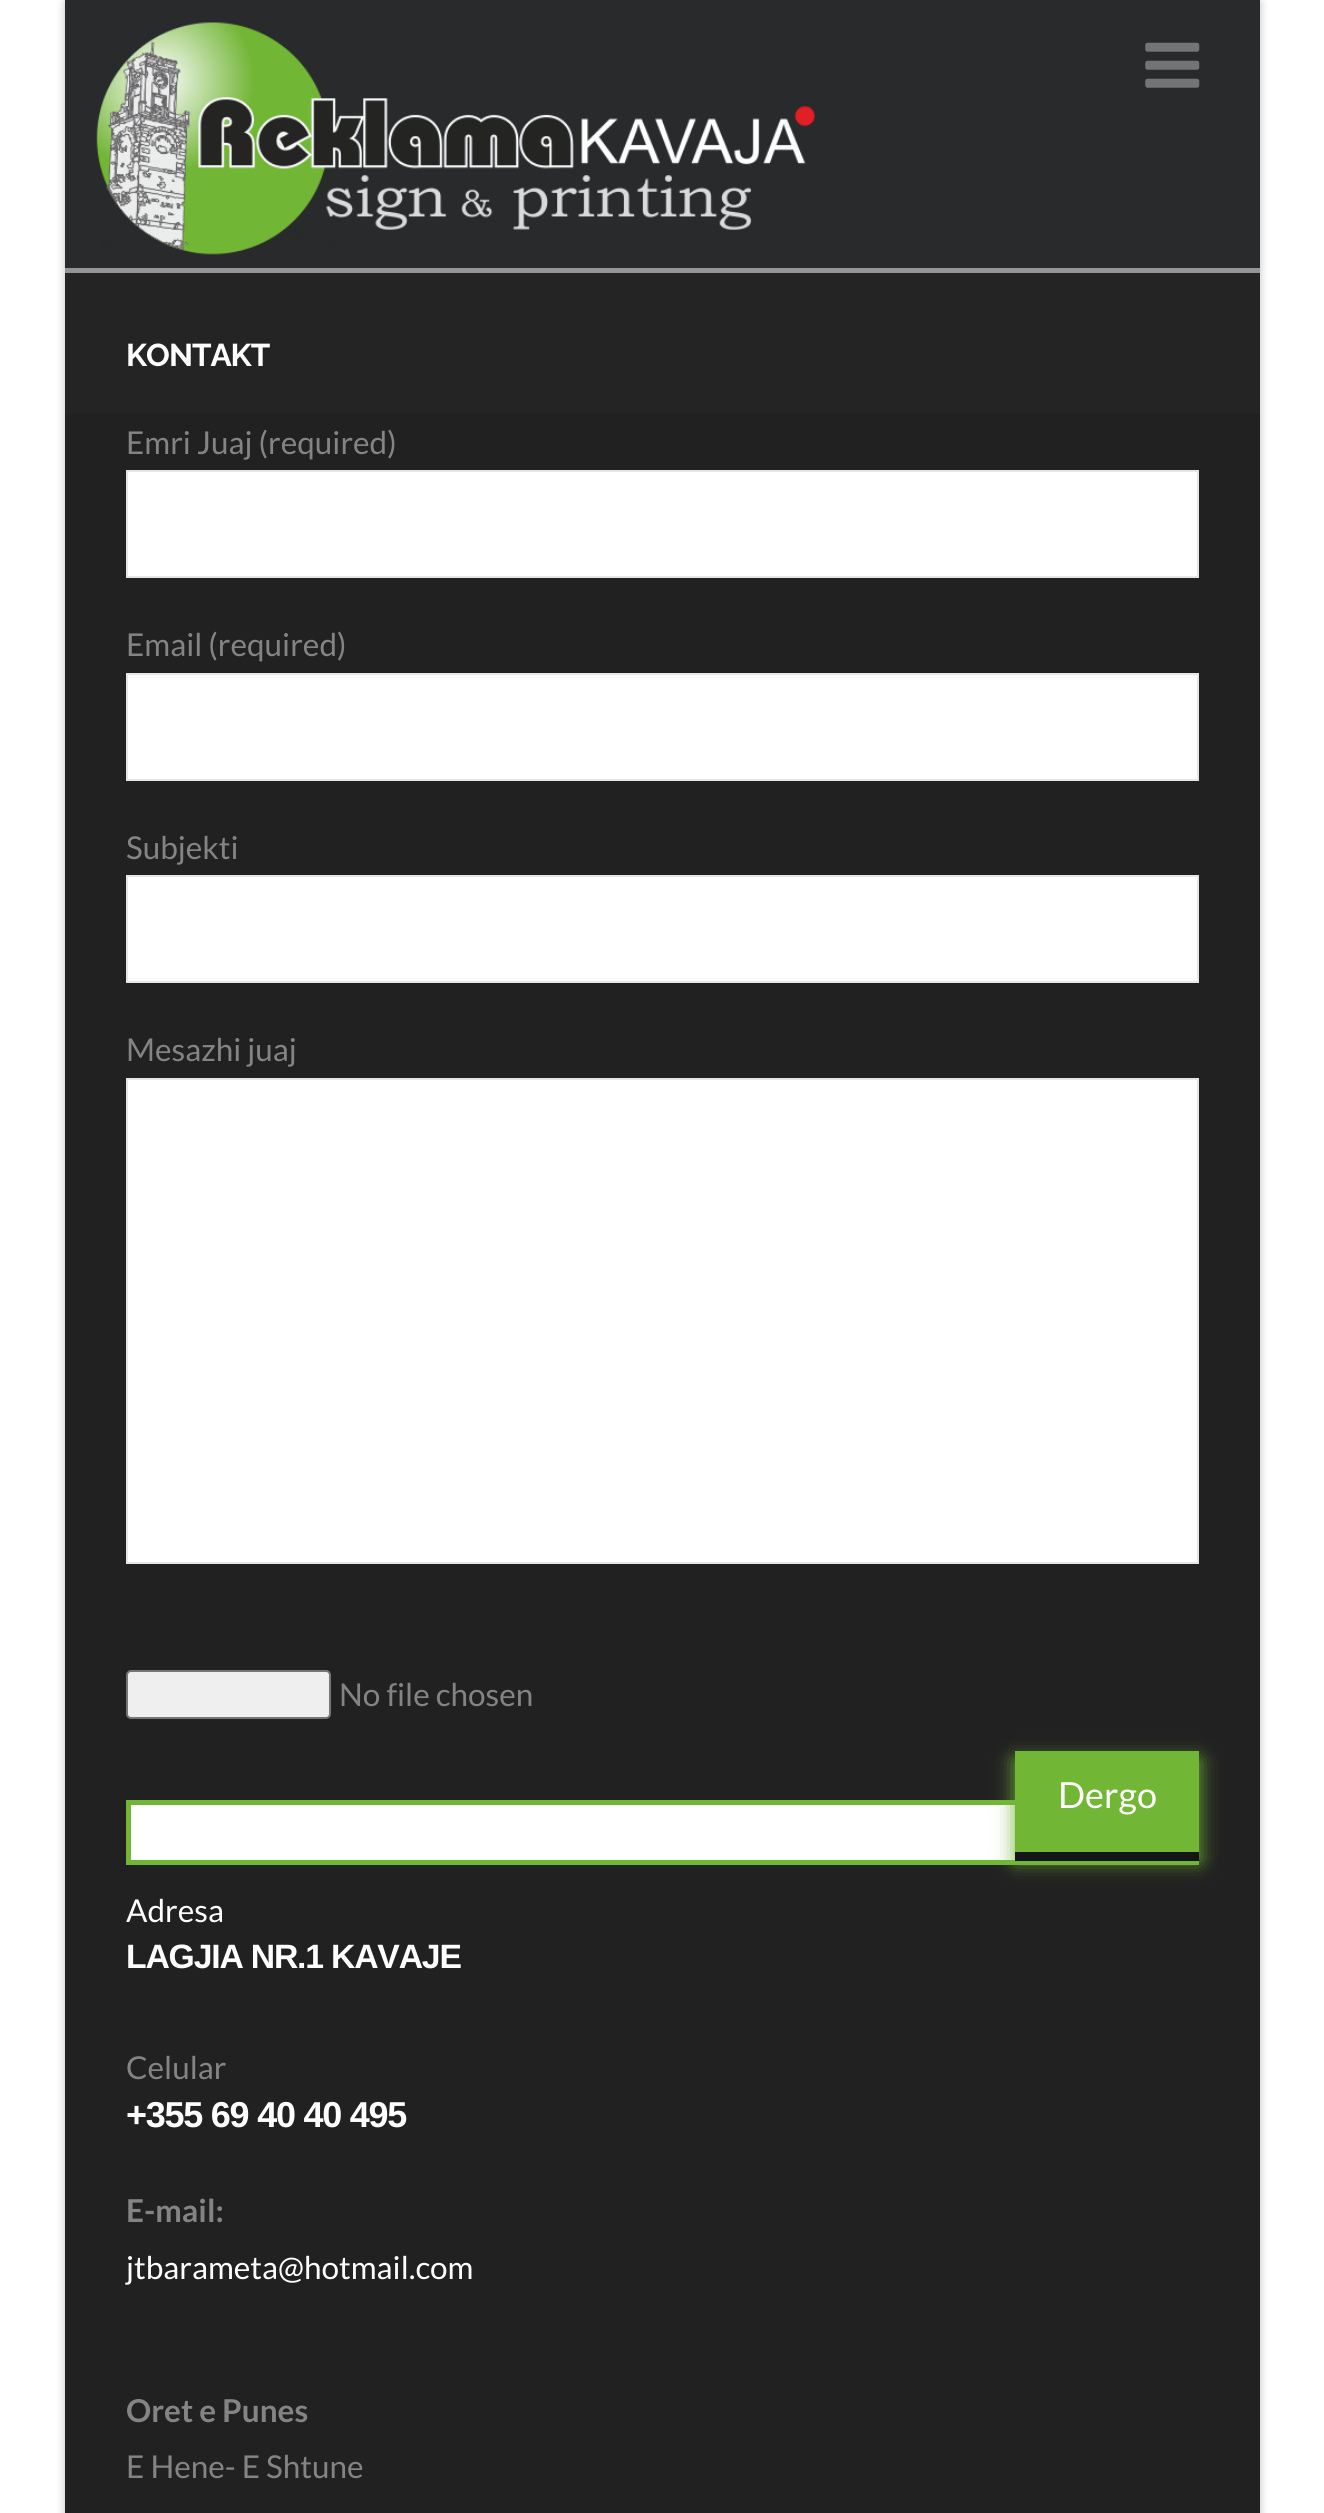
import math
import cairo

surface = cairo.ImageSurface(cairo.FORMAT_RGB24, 1324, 2513)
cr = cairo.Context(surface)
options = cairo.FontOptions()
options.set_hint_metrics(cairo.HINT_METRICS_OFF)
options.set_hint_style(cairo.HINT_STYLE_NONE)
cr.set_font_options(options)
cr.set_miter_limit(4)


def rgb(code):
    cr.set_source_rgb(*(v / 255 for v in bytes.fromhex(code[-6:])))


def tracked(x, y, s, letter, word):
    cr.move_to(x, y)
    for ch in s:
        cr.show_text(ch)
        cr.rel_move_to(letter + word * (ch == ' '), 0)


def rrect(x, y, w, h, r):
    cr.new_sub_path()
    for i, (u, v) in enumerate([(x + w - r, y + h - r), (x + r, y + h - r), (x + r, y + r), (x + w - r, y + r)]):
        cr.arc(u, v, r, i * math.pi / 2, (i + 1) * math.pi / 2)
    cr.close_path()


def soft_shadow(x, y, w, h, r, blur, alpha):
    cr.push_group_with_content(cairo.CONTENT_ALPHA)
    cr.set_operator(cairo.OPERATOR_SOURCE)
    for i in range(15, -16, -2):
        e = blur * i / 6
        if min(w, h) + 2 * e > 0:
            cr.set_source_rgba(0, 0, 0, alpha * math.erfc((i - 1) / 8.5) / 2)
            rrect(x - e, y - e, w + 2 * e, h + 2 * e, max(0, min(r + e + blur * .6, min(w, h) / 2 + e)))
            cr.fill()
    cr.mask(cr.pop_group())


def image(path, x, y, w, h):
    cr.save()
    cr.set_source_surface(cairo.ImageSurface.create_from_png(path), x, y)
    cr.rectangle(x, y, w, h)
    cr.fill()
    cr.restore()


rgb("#ffffff")
cr.paint()
rgb("#000000")
soft_shadow(65, 2, 1195, 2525, 0, 4.5, 0.25)
rgb("#292a2c")
cr.rectangle(65, 0, 1195, 272)
cr.fill()
rgb("#242424")
cr.rectangle(65, 272, 1195, 142)
cr.fill()
cr.set_source_rgba(1, 1, 1, 0.5)
cr.rectangle(65, 268, 1195, 5)
cr.fill()
image("img/1.png", 96, 22, 719, 233)
image("img/2.png", 1145, 42, 55, 46)
rgb("#212121")
cr.rectangle(65, 414, 1195, 2099)
cr.fill()
rgb("#ffffff")
cr.rectangle(127, 471, 1071, 106)
cr.fill_preserve()
rgb("#e6e6e6")
cr.stroke()
rgb("#ffffff")
cr.rectangle(127, 674, 1071, 106)
cr.fill_preserve()
rgb("#e6e6e6")
cr.stroke()
rgb("#ffffff")
cr.rectangle(127, 876, 1071, 106)
cr.fill_preserve()
rgb("#e6e6e6")
cr.stroke()
rgb("#ffffff")
cr.rectangle(127, 1079, 1071, 484)
cr.fill_preserve()
rgb("#e6e6e6")
cr.stroke()
rgb("#efefef")
rrect(127, 1671, 203, 47, 4)
cr.fill_preserve()
rgb("#767676")
cr.stroke()
rgb("#ffffff")
cr.rectangle(131, 1805, 884, 55)
cr.fill()
cr.rectangle(128.5, 1802.5, 1068, 60)
rgb("#71b635")
cr.set_line_width(5)
cr.stroke()
rgb("#71b635")
soft_shadow(1015, 1760, 184, 101, 0, 10, 1)
rgb("#141516")
cr.rectangle(1015, 1852, 184, 9)
cr.fill()
rgb("#71b635")
cr.rectangle(1015, 1751, 184, 101)
cr.fill()
cr.select_font_face("Raleway", cairo.FONT_SLANT_NORMAL, cairo.FONT_WEIGHT_BOLD)
cr.set_font_size(31.5)
rgb("#ffffff")
tracked(126, 366, "KONTAKT", -1, 0)
cr.select_font_face("Lato")
rgb("#848484")
for x, y, s in [
    (126, 454, "Emri Juaj (required)"),
    (126, 656, "Email (required)"),
    (126, 859, "Subjekti"),
    (126, 1061, "Mesazhi juaj"),
    (339, 1706, "No file chosen"),
]:
    cr.move_to(x, y)
    cr.show_text(s)
cr.set_font_size(36)
rgb("#ffffff")
cr.move_to(1058, 1808)
cr.show_text("Dergo")
cr.set_font_size(31.5)
cr.move_to(126, 1922)
cr.show_text("Adresa")
cr.select_font_face("Liberation Sans", cairo.FONT_SLANT_NORMAL, cairo.FONT_WEIGHT_BOLD)
cr.set_font_size(33.75)
tracked(126, 1968, "LAGJIA NR.1 KAVAJE", -1.2, 0)
cr.select_font_face("Lato")
cr.set_font_size(31.5)
rgb("#848484")
cr.move_to(126, 2079)
cr.show_text("Celular")
cr.select_font_face("Liberation Sans", cairo.FONT_SLANT_NORMAL, cairo.FONT_WEIGHT_BOLD)
cr.set_font_size(36)
rgb("#ffffff")
tracked(126, 2127, "+355 69 40 40 495", -1.25, 0)
cr.select_font_face("Lato", cairo.FONT_SLANT_NORMAL, cairo.FONT_WEIGHT_BOLD)
cr.set_font_size(31.5)
rgb("#848484")
cr.move_to(126, 2222)
cr.show_text("E-mail:")
cr.select_font_face("Lato")
rgb("#ffffff")
cr.move_to(126, 2279)
cr.show_text("jtbarameta@hotmail.com")
cr.select_font_face("Lato", cairo.FONT_SLANT_NORMAL, cairo.FONT_WEIGHT_BOLD)
rgb("#848484")
cr.move_to(126, 2422)
cr.show_text("Oret e Punes")
cr.select_font_face("Lato")
cr.move_to(126, 2478)
cr.show_text("E Hene- E Shtune")
surface.write_to_png("page.png")
